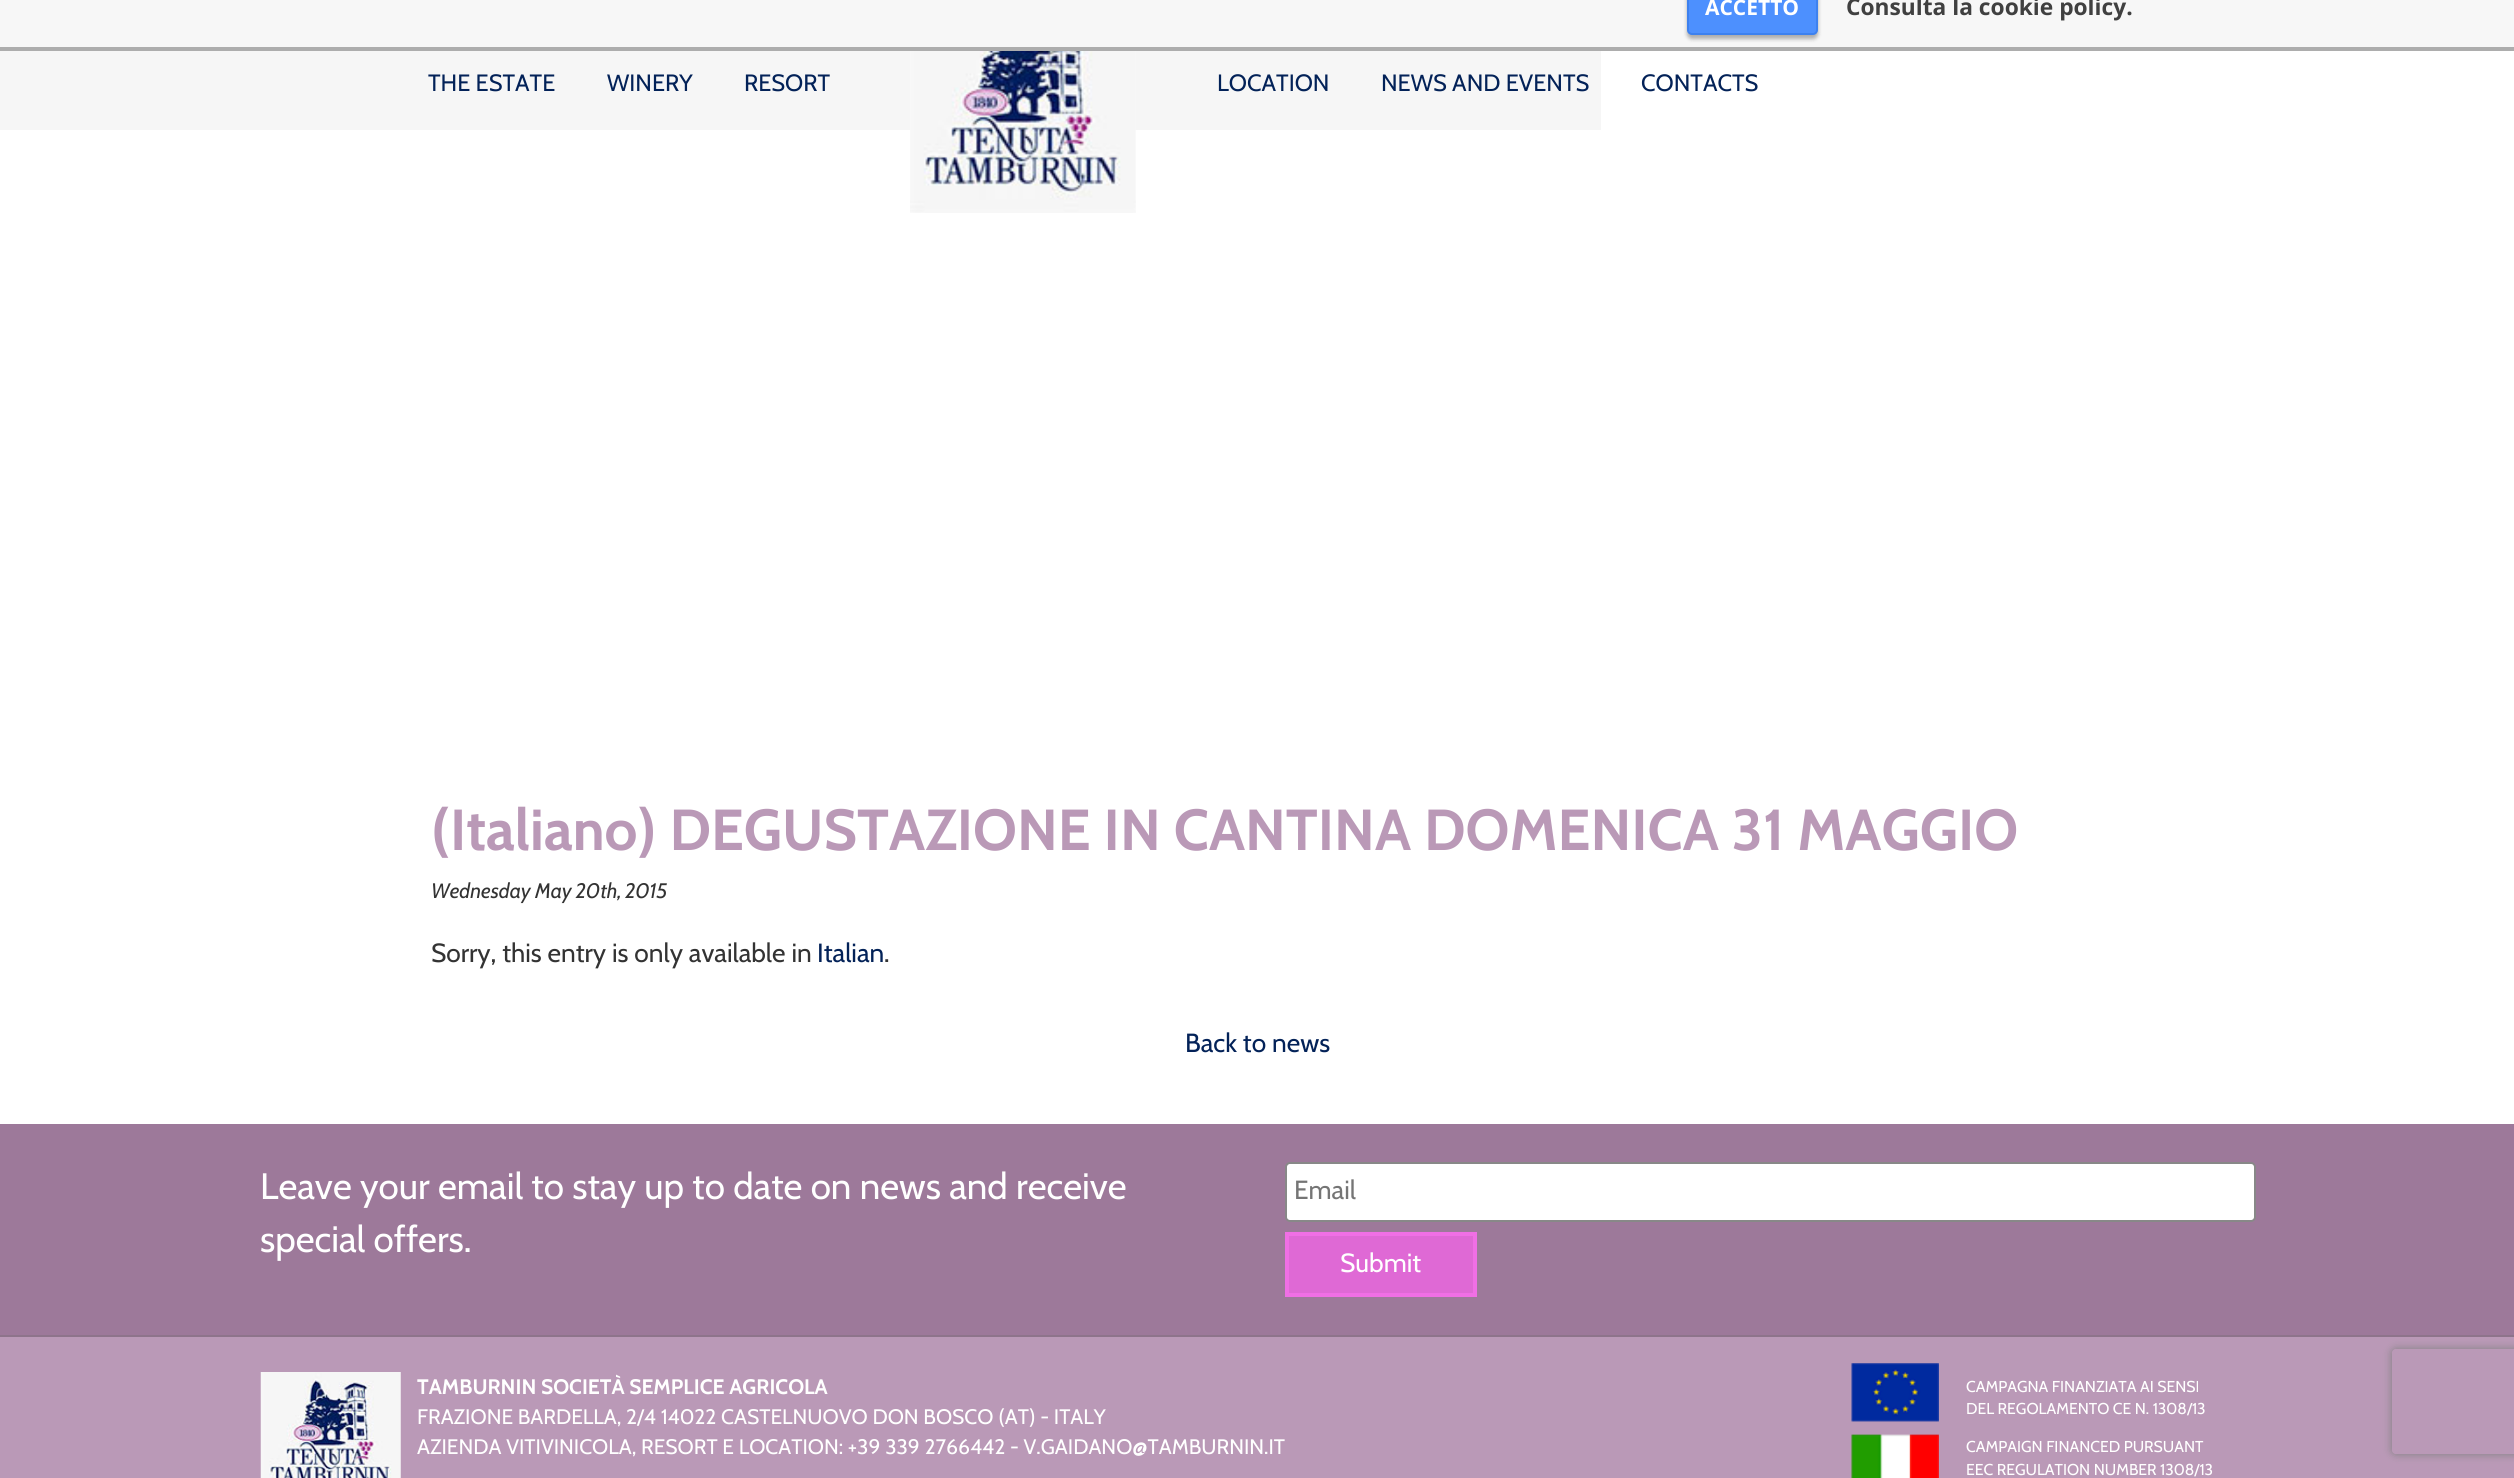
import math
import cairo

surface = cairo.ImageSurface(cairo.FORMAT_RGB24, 2514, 1478)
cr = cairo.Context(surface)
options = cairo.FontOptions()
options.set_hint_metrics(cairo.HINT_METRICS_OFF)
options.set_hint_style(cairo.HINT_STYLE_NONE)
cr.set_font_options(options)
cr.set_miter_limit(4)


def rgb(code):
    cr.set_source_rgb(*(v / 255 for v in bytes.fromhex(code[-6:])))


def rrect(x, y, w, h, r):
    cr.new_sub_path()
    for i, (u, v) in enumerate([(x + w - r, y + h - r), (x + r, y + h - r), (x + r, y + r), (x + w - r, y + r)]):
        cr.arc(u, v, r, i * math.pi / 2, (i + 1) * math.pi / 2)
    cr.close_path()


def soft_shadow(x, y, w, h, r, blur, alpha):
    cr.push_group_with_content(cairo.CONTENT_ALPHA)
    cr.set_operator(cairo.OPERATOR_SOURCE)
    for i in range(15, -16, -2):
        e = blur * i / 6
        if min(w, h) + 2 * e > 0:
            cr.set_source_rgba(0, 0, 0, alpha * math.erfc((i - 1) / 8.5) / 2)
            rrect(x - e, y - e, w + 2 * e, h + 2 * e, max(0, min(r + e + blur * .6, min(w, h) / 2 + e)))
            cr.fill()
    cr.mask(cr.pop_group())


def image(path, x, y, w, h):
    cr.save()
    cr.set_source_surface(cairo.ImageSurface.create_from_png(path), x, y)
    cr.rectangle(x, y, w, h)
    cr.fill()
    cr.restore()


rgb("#ffffff")
cr.paint()
rgb("#f7f7f7")
cr.rectangle(0, 0, 2514, 47)
cr.fill()
rgb("#adadad")
cr.rectangle(0, 47, 2514, 4)
cr.fill()
rgb("#000000")
soft_shadow(1687, -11, 131, 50, 5, 2, 0.3)
rgb("#4d90fe")
rrect(1688, -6, 129, 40, 4)
cr.fill_preserve()
rgb("#3d81ef")
cr.stroke()
rgb("#f6f6f6")
cr.rectangle(0, 51, 1601, 79)
cr.fill()
image("img/1.png", 910, 51, 226, 162)
rgb("#9d799a")
cr.rectangle(0, 1124, 2514, 211)
cr.fill()
rgb("#ffffff")
rrect(1286, 1163, 969, 58, 4)
cr.fill_preserve()
rgb("#888888")
cr.stroke()
rgb("#df69d5")
cr.rectangle(1287, 1234, 188, 61)
cr.fill_preserve()
rgb("#f06fe5")
cr.set_line_width(4)
cr.stroke()
rgb("#ba99b7")
cr.rectangle(0, 1337, 2514, 141)
cr.fill()
rgb("#8e748b")
cr.rectangle(0, 1335, 2514, 2)
cr.fill()
image("img/2.png", 260, 1372, 141, 106)
image("img/3.png", 1851, 1363, 88, 115)
cr.save()
cr.set_fill_rule(cairo.FILL_RULE_EVEN_ODD)
cr.new_path()
cr.move_to(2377, 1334)
cr.line_to(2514, 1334)
cr.line_to(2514, 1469)
cr.line_to(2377, 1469)
cr.close_path()
cr.move_to(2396, 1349)
cr.line_to(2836, 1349)
cr.curve_to(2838, 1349, 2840, 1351, 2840, 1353)
cr.line_to(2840, 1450)
cr.curve_to(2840, 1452, 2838, 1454, 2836, 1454)
cr.line_to(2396, 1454)
cr.curve_to(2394, 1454, 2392, 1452, 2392, 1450)
cr.line_to(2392, 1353)
cr.curve_to(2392, 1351, 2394, 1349, 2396, 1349)
cr.close_path()
cr.clip()
rgb("#808080")
soft_shadow(2392, 1349, 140, 105, 4, 4.5, 1)
cr.restore()
cr.select_font_face("Open Sans", cairo.FONT_SLANT_NORMAL, cairo.FONT_WEIGHT_BOLD)
cr.set_font_size(21)
rgb("#ffffff")
cr.move_to(1705, 15)
cr.show_text("ACCETTO")
cr.set_font_size(22.75)
rgb("#404040")
cr.move_to(1846, 15)
cr.show_text("Consulta la cookie policy.")
cr.select_font_face("Cabin")
cr.set_font_size(23.6)
rgb("#032258")
for x, y, s in [
    (428, 91, "THE ESTATE"),
    (607, 91, "WINERY"),
    (744, 91, "RESORT"),
    (1217, 91, "LOCATION"),
    (1381, 91, "NEWS AND EVENTS"),
    (1641, 91, "CONTACTS"),
]:
    cr.move_to(x, y)
    cr.show_text(s)
cr.select_font_face("Cabin", cairo.FONT_SLANT_NORMAL, cairo.FONT_WEIGHT_BOLD)
cr.set_font_size(57.75)
rgb("#ba99b7")
cr.move_to(431, 850)
cr.show_text("(Italiano) DEGUSTAZIONE IN CANTINA DOMENICA 31 MAGGIO")
cr.select_font_face("Cabin", cairo.FONT_SLANT_ITALIC)
cr.set_font_size(21)
rgb("#333333")
cr.move_to(431, 898)
cr.show_text("Wednesday May 20th, 2015")
cr.select_font_face("Cabin")
cr.set_font_size(26.25)
cr.move_to(431, 962)
cr.show_text("Sorry, this entry is only available in")
rgb("#032258")
cr.move_to(817, 962)
cr.show_text("Italian")
rgb("#333333")
cr.move_to(884, 962)
cr.show_text(".")
rgb("#032258")
cr.move_to(1185, 1052)
cr.show_text("Back to news")
cr.set_font_size(36.75)
rgb("#ffffff")
cr.move_to(260, 1199)
cr.show_text("Leave your email to stay up to date on news and receive")
cr.move_to(260, 1252)
cr.show_text("special offers.")
cr.set_font_size(26.25)
rgb("#757575")
cr.move_to(1294, 1199)
cr.show_text("Email")
rgb("#ffffff")
cr.move_to(1340, 1272)
cr.show_text("Submit")
cr.select_font_face("Cabin", cairo.FONT_SLANT_NORMAL, cairo.FONT_WEIGHT_BOLD)
cr.set_font_size(21)
cr.move_to(417, 1394)
cr.show_text("TAMBURNIN SOCIETÀ SEMPLICE AGRICOLA")
cr.select_font_face("Cabin")
cr.move_to(417, 1424)
cr.show_text("FRAZIONE BARDELLA, 2/4 14022 CASTELNUOVO DON BOSCO (AT) - ITALY")
cr.move_to(417, 1454)
cr.show_text("AZIENDA VITIVINICOLA, RESORT E LOCATION: +39 339 2766442 - V.GAIDANO@TAMBURNIN.IT")
cr.set_font_size(15.75)
for x, y, s in [
    (1966, 1392, "CAMPAGNA FINANZIATA AI SENSI"),
    (1966, 1414, "DEL REGOLAMENTO CE N. 1308/13"),
    (1966, 1452, "CAMPAIGN FINANCED PURSUANT"),
    (1966, 1475, "EEC REGULATION NUMBER 1308/13"),
]:
    cr.move_to(x, y)
    cr.show_text(s)
surface.write_to_png("page.png")
